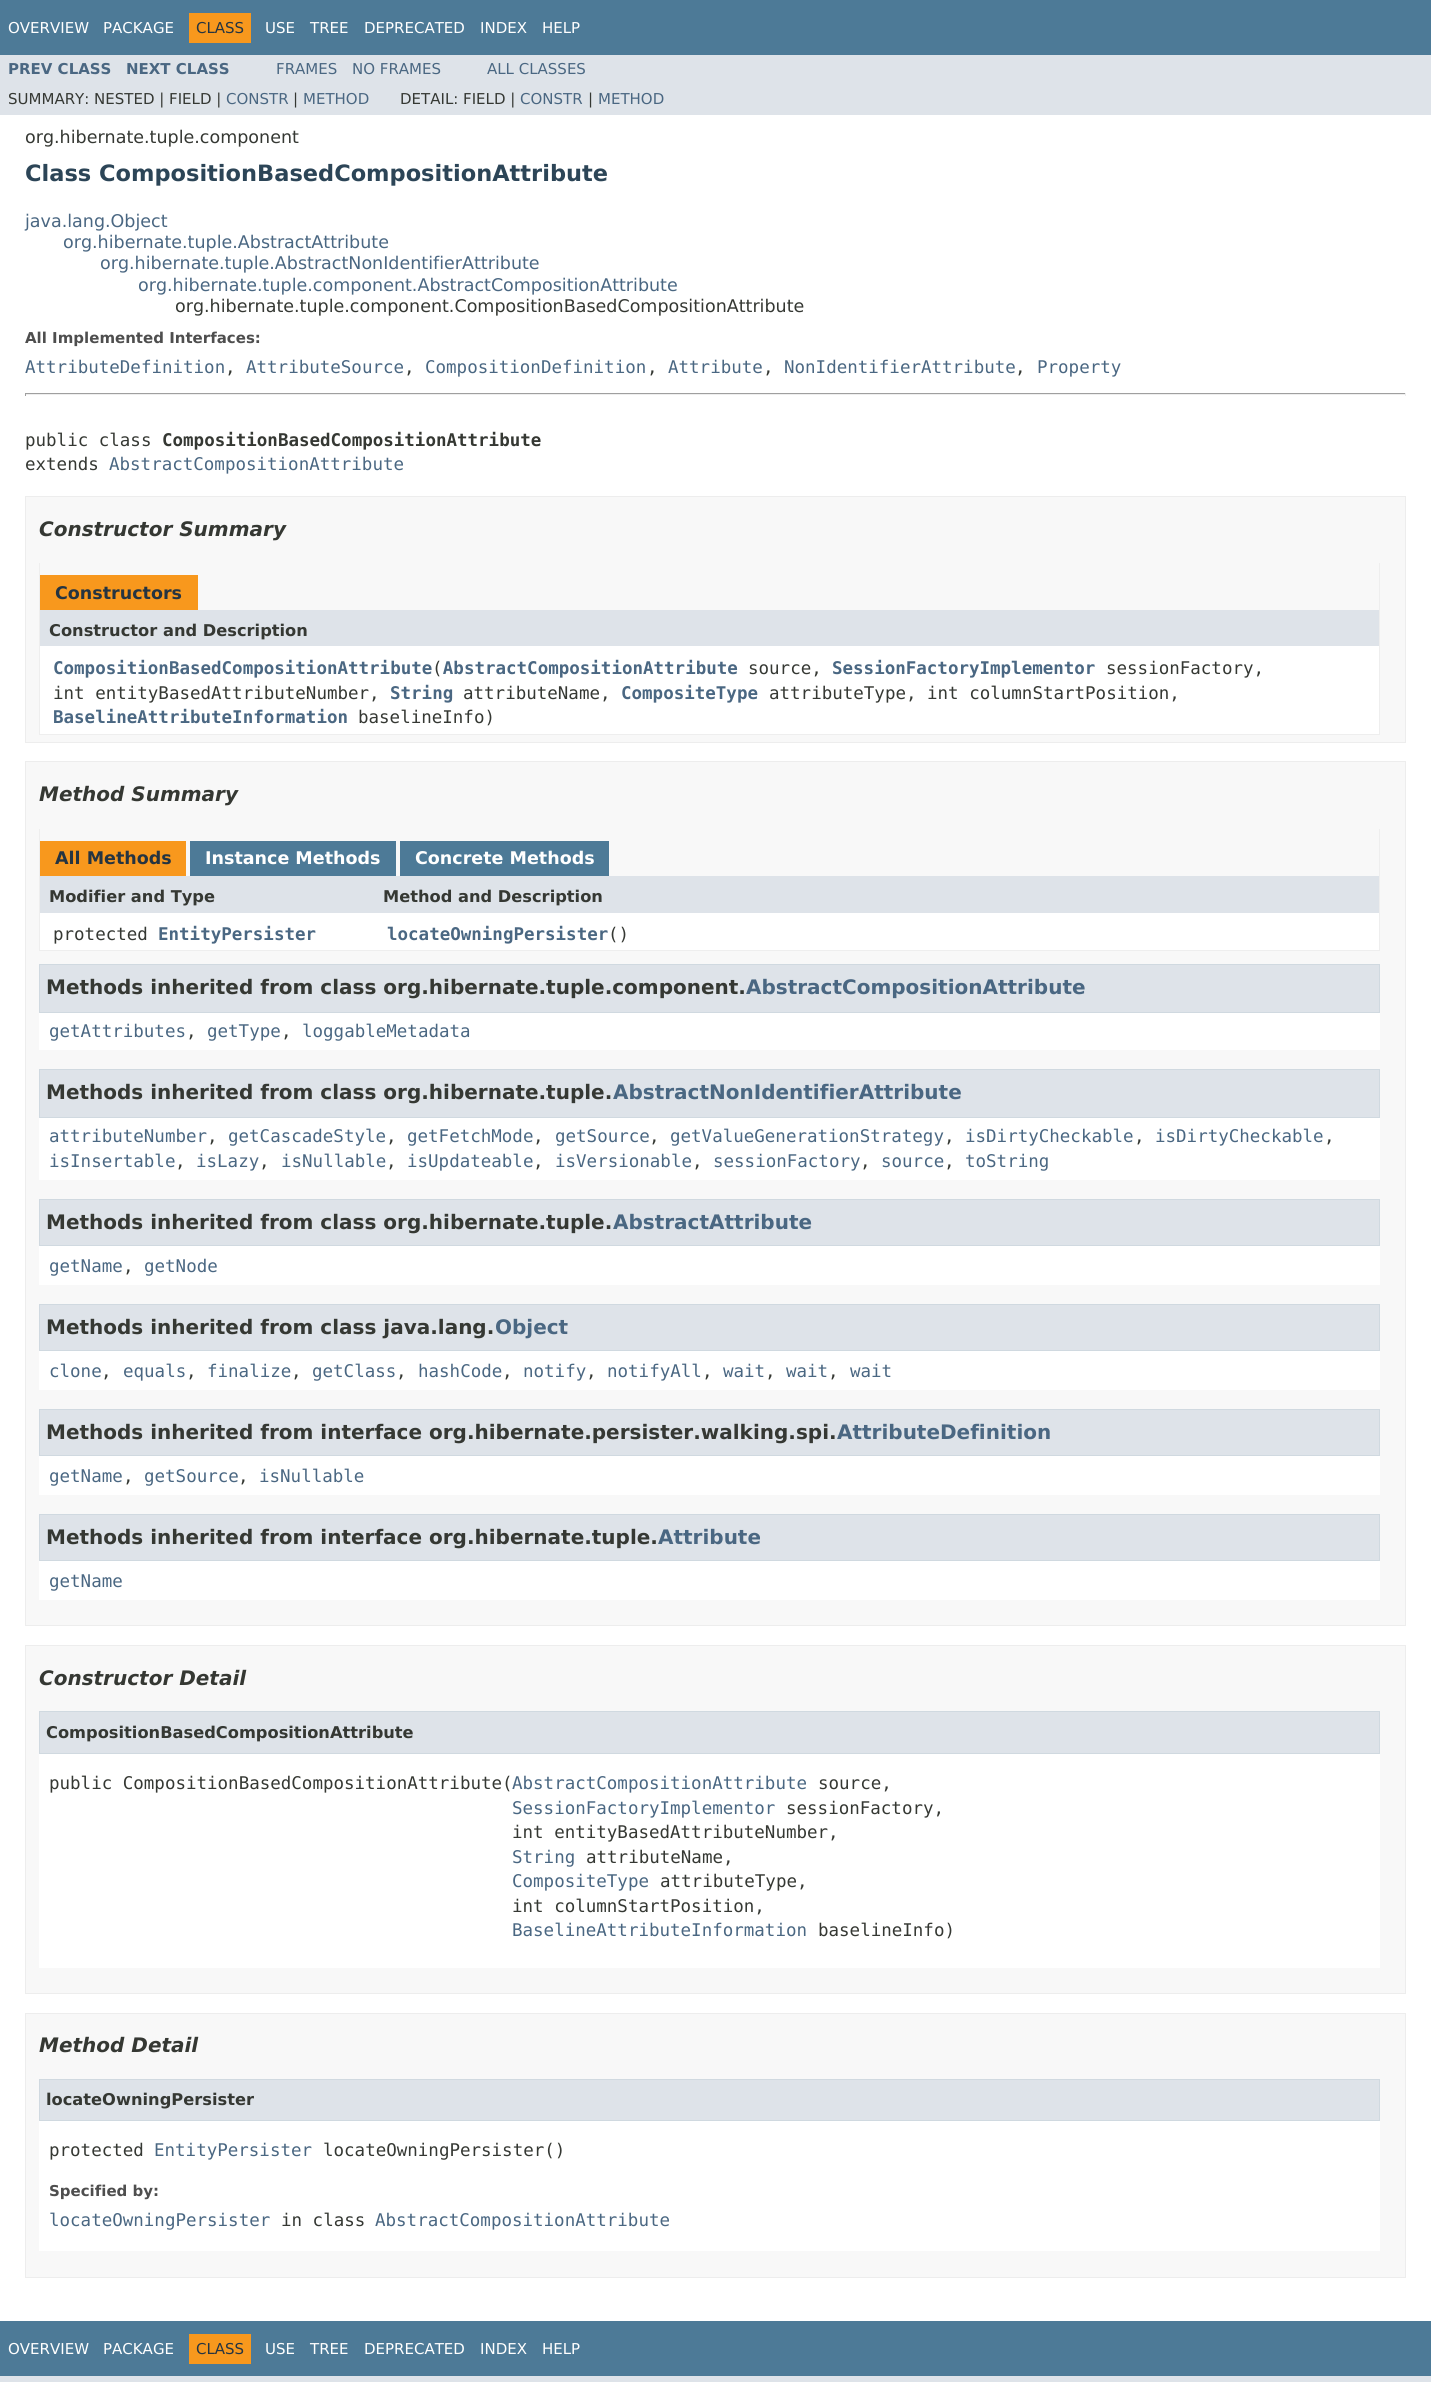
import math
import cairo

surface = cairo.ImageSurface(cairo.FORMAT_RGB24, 1431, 2382)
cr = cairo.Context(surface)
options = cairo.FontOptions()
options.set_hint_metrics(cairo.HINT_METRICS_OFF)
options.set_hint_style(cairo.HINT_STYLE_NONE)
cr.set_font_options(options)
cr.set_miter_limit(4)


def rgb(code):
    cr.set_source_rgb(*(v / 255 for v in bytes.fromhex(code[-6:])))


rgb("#ffffff")
cr.paint()
for x, y, w, h, color in [
    (0, 0, 1431, 55, "#4d7a97"),
    (189, 13, 62, 30, "#f8981d"),
    (0, 55, 1431, 60, "#dee3e9"),
    (25, 393, 1381, 1, "#9f9f9f"),
    (1405, 393, 1, 3, "#eeeeee"),
    (25, 394, 1381, 1, "#eeeeee"),
    (25, 393, 1, 3, "#9f9f9f"),
]:
    rgb(color)
    cr.rectangle(x, y, w, h)
    cr.fill()
rgb("#f8f8f8")
cr.rectangle(25.5, 496.5, 1380, 246)
cr.fill_preserve()
rgb("#ededed")
cr.set_line_width(1)
cr.stroke()
for x, y, w, h, color in [
    (1379, 563, 1, 172, "#eeeeee"),
    (39, 734, 1341, 1, "#eeeeee"),
    (39, 563, 1, 172, "#eeeeee"),
    (40, 575, 158, 35, "#f8981d"),
    (40, 610, 1339, 36, "#dee3e9"),
    (40, 646, 1339, 88, "#ffffff"),
]:
    rgb(color)
    cr.rectangle(x, y, w, h)
    cr.fill()
rgb("#f8f8f8")
cr.rectangle(25.5, 761.5, 1380, 864)
cr.fill_preserve()
rgb("#ededed")
cr.stroke()
for x, y, w, h, color in [
    (1379, 829, 1, 122, "#eeeeee"),
    (39, 950, 1341, 1, "#eeeeee"),
    (39, 829, 1, 122, "#eeeeee"),
    (40, 841, 146, 35, "#f8981d"),
    (190, 841, 206, 35, "#4d7a97"),
    (400, 841, 209, 35, "#4d7a97"),
    (40, 876, 1339, 37, "#dee3e9"),
    (40, 913, 1339, 37, "#ffffff"),
    (39, 1013, 1341, 37, "#ffffff"),
]:
    rgb(color)
    cr.rectangle(x, y, w, h)
    cr.fill()
rgb("#dee3e9")
cr.rectangle(39.5, 964.5, 1340, 48)
cr.fill_preserve()
rgb("#d0d9e0")
cr.stroke()
rgb("#ffffff")
cr.rectangle(39, 1118, 1341, 62)
cr.fill()
rgb("#dee3e9")
cr.rectangle(39.5, 1069.5, 1340, 48)
cr.fill_preserve()
rgb("#d0d9e0")
cr.stroke()
rgb("#ffffff")
cr.rectangle(39, 1246, 1341, 39)
cr.fill()
rgb("#dee3e9")
cr.rectangle(39.5, 1199.5, 1340, 46)
cr.fill_preserve()
rgb("#d0d9e0")
cr.stroke()
rgb("#ffffff")
cr.rectangle(39, 1351, 1341, 39)
cr.fill()
rgb("#dee3e9")
cr.rectangle(39.5, 1304.5, 1340, 46)
cr.fill_preserve()
rgb("#d0d9e0")
cr.stroke()
rgb("#ffffff")
cr.rectangle(39, 1456, 1341, 39)
cr.fill()
rgb("#dee3e9")
cr.rectangle(39.5, 1409.5, 1340, 46)
cr.fill_preserve()
rgb("#d0d9e0")
cr.stroke()
rgb("#ffffff")
cr.rectangle(39, 1561, 1341, 39)
cr.fill()
rgb("#dee3e9")
cr.rectangle(39.5, 1514.5, 1340, 46)
cr.fill_preserve()
rgb("#d0d9e0")
cr.stroke()
rgb("#f8f8f8")
cr.rectangle(25.5, 1645.5, 1380, 348)
cr.fill_preserve()
rgb("#ededed")
cr.stroke()
rgb("#ffffff")
cr.rectangle(39, 1754, 1341, 214)
cr.fill()
rgb("#dee3e9")
cr.rectangle(39.5, 1711.5, 1340, 42)
cr.fill_preserve()
rgb("#d0d9e0")
cr.stroke()
rgb("#f8f8f8")
cr.rectangle(25.5, 2013.5, 1380, 264)
cr.fill_preserve()
rgb("#ededed")
cr.stroke()
rgb("#ffffff")
cr.rectangle(39, 2121, 1341, 130)
cr.fill()
rgb("#dee3e9")
cr.rectangle(39.5, 2079.5, 1340, 41)
cr.fill_preserve()
rgb("#d0d9e0")
cr.stroke()
for x, y, w, h, color in [
    (0, 2321, 1431, 55, "#4d7a97"),
    (189, 2334, 62, 30, "#f8981d"),
    (0, 2376, 1431, 6, "#dee3e9"),
]:
    rgb(color)
    cr.rectangle(x, y, w, h)
    cr.fill()
cr.select_font_face("DejaVu Sans")
cr.set_font_size(15)
rgb("#ffffff")
cr.move_to(8, 33)
cr.show_text("OVERVIEW")
cr.move_to(103, 33)
cr.show_text("PACKAGE")
rgb("#253441")
cr.move_to(196, 33)
cr.show_text("CLASS")
rgb("#ffffff")
for x, y, s in [
    (265, 33, "USE"),
    (310, 33, "TREE"),
    (364, 33, "DEPRECATED"),
    (480, 33, "INDEX"),
    (542, 33, "HELP"),
]:
    cr.move_to(x, y)
    cr.show_text(s)
cr.select_font_face("DejaVu Sans", cairo.FONT_SLANT_NORMAL, cairo.FONT_WEIGHT_BOLD)
rgb("#4a6782")
cr.move_to(8, 74)
cr.show_text("PREV CLASS")
cr.move_to(126, 74)
cr.show_text("NEXT CLASS")
cr.select_font_face("DejaVu Sans")
for x, y, s in [
    (276, 74, "FRAMES"),
    (352, 74, "NO FRAMES"),
    (487, 74, "ALL CLASSES"),
]:
    cr.move_to(x, y)
    cr.show_text(s)
rgb("#353833")
cr.move_to(8, 104)
cr.show_text("SUMMARY: NESTED | FIELD |")
rgb("#4a6782")
cr.move_to(226, 104)
cr.show_text("CONSTR")
rgb("#353833")
cr.move_to(293, 104)
cr.show_text("|")
rgb("#4a6782")
cr.move_to(303, 104)
cr.show_text("METHOD")
rgb("#353833")
cr.move_to(400, 104)
cr.show_text("DETAIL: FIELD |")
rgb("#4a6782")
cr.move_to(520, 104)
cr.show_text("CONSTR")
rgb("#353833")
cr.move_to(588, 104)
cr.show_text("|")
rgb("#4a6782")
cr.move_to(598, 104)
cr.show_text("METHOD")
cr.set_font_size(17.5)
rgb("#353833")
cr.move_to(25, 143)
cr.show_text("org.hibernate.tuple.component")
cr.select_font_face("DejaVu Sans", cairo.FONT_SLANT_NORMAL, cairo.FONT_WEIGHT_BOLD)
cr.set_font_size(22.5)
rgb("#2c4557")
cr.move_to(25, 181)
cr.show_text("Class CompositionBasedCompositionAttribute")
cr.select_font_face("DejaVu Sans")
cr.set_font_size(17.5)
rgb("#4a6782")
for x, y, s in [
    (25, 227, "java.lang.Object"),
    (63, 248, "org.hibernate.tuple.AbstractAttribute"),
    (100, 269, "org.hibernate.tuple.AbstractNonIdentifierAttribute"),
    (138, 291, "org.hibernate.tuple.component.AbstractCompositionAttribute"),
]:
    cr.move_to(x, y)
    cr.show_text(s)
rgb("#353833")
cr.move_to(175, 312)
cr.show_text("org.hibernate.tuple.component.CompositionBasedCompositionAttribute")
cr.select_font_face("DejaVu Sans", cairo.FONT_SLANT_NORMAL, cairo.FONT_WEIGHT_BOLD)
cr.set_font_size(15)
rgb("#4e4e4e")
cr.move_to(25, 343)
cr.show_text("All Implemented Interfaces:")
cr.select_font_face("DejaVu Sans Mono")
cr.set_font_size(17.5)
rgb("#4a6782")
cr.move_to(25, 373)
cr.show_text("AttributeDefinition")
rgb("#353833")
cr.move_to(225, 373)
cr.show_text(",")
rgb("#4a6782")
cr.move_to(246, 373)
cr.show_text("AttributeSource")
rgb("#353833")
cr.move_to(404, 373)
cr.show_text(",")
rgb("#4a6782")
cr.move_to(425, 373)
cr.show_text("CompositionDefinition")
rgb("#353833")
cr.move_to(647, 373)
cr.show_text(",")
rgb("#4a6782")
cr.move_to(668, 373)
cr.show_text("Attribute")
rgb("#353833")
cr.move_to(763, 373)
cr.show_text(",")
rgb("#4a6782")
cr.move_to(784, 373)
cr.show_text("NonIdentifierAttribute")
rgb("#353833")
cr.move_to(1015, 373)
cr.show_text(",")
rgb("#4a6782")
cr.move_to(1037, 373)
cr.show_text("Property")
rgb("#353833")
cr.move_to(25, 446)
cr.show_text("public class")
cr.select_font_face("DejaVu Sans Mono", cairo.FONT_SLANT_NORMAL, cairo.FONT_WEIGHT_BOLD)
cr.move_to(162, 446)
cr.show_text("CompositionBasedCompositionAttribute")
cr.select_font_face("DejaVu Sans Mono")
cr.move_to(25, 470)
cr.show_text("extends")
rgb("#4a6782")
cr.move_to(109, 470)
cr.show_text("AbstractCompositionAttribute")
cr.select_font_face("DejaVu Sans", cairo.FONT_SLANT_ITALIC, cairo.FONT_WEIGHT_BOLD)
cr.set_font_size(20)
rgb("#353833")
cr.move_to(39, 536)
cr.show_text("Constructor Summary")
cr.select_font_face("DejaVu Sans", cairo.FONT_SLANT_NORMAL, cairo.FONT_WEIGHT_BOLD)
cr.set_font_size(17.5)
rgb("#253441")
cr.move_to(55, 599)
cr.show_text("Constructors")
cr.set_font_size(16.25)
rgb("#353833")
cr.move_to(49, 636)
cr.show_text("Constructor and Description")
cr.select_font_face("DejaVu Sans Mono", cairo.FONT_SLANT_NORMAL, cairo.FONT_WEIGHT_BOLD)
cr.set_font_size(17.5)
rgb("#4a6782")
cr.move_to(53, 674)
cr.show_text("CompositionBasedCompositionAttribute AbstractCompositionAttribute")
cr.move_to(832, 674)
cr.show_text("SessionFactoryImplementor")
cr.select_font_face("DejaVu Sans Mono")
rgb("#353833")
for x, y, s in [
    (432, 674, "("),
    (748, 674, "source,"),
    (1106, 674, "sessionFactory,"),
    (53, 699, "int entityBasedAttributeNumber,"),
]:
    cr.move_to(x, y)
    cr.show_text(s)
cr.select_font_face("DejaVu Sans Mono", cairo.FONT_SLANT_NORMAL, cairo.FONT_WEIGHT_BOLD)
rgb("#4a6782")
cr.move_to(390, 699)
cr.show_text("String")
cr.select_font_face("DejaVu Sans Mono")
rgb("#353833")
cr.move_to(463, 699)
cr.show_text("attributeName,")
cr.select_font_face("DejaVu Sans Mono", cairo.FONT_SLANT_NORMAL, cairo.FONT_WEIGHT_BOLD)
rgb("#4a6782")
cr.move_to(621, 699)
cr.show_text("CompositeType")
cr.select_font_face("DejaVu Sans Mono")
rgb("#353833")
cr.move_to(769, 699)
cr.show_text("attributeType, int columnStartPosition,")
cr.select_font_face("DejaVu Sans Mono", cairo.FONT_SLANT_NORMAL, cairo.FONT_WEIGHT_BOLD)
rgb("#4a6782")
cr.move_to(53, 723)
cr.show_text("BaselineAttributeInformation")
cr.select_font_face("DejaVu Sans Mono")
rgb("#353833")
cr.move_to(358, 723)
cr.show_text("baselineInfo)")
cr.select_font_face("DejaVu Sans", cairo.FONT_SLANT_ITALIC, cairo.FONT_WEIGHT_BOLD)
cr.set_font_size(20)
cr.move_to(39, 801)
cr.show_text("Method Summary")
cr.select_font_face("DejaVu Sans", cairo.FONT_SLANT_NORMAL, cairo.FONT_WEIGHT_BOLD)
cr.set_font_size(17.5)
rgb("#253441")
cr.move_to(55, 864)
cr.show_text("All Methods")
rgb("#ffffff")
cr.move_to(205, 864)
cr.show_text("Instance Methods")
cr.move_to(415, 864)
cr.show_text("Concrete Methods")
cr.set_font_size(16.25)
rgb("#353833")
cr.move_to(49, 902)
cr.show_text("Modifier and Type")
cr.move_to(383, 902)
cr.show_text("Method and Description")
cr.select_font_face("DejaVu Sans Mono")
cr.set_font_size(17.5)
cr.move_to(53, 940)
cr.show_text("protected")
cr.select_font_face("DejaVu Sans Mono", cairo.FONT_SLANT_NORMAL, cairo.FONT_WEIGHT_BOLD)
rgb("#4a6782")
cr.move_to(158, 940)
cr.show_text("EntityPersister")
cr.move_to(387, 940)
cr.show_text("locateOwningPersister")
cr.select_font_face("DejaVu Sans Mono")
rgb("#353833")
cr.move_to(608, 940)
cr.show_text("()")
cr.select_font_face("DejaVu Sans", cairo.FONT_SLANT_NORMAL, cairo.FONT_WEIGHT_BOLD)
cr.set_font_size(20)
cr.move_to(46, 994)
cr.show_text("Methods inherited from class org.hibernate.tuple.component.")
rgb("#4a6782")
cr.move_to(746, 994)
cr.show_text("AbstractCompositionAttribute")
cr.select_font_face("DejaVu Sans Mono")
cr.set_font_size(17.5)
cr.move_to(49, 1037)
cr.show_text("getAttributes")
rgb("#353833")
cr.move_to(186, 1037)
cr.show_text(",")
rgb("#4a6782")
cr.move_to(207, 1037)
cr.show_text("getType")
rgb("#353833")
cr.move_to(281, 1037)
cr.show_text(",")
rgb("#4a6782")
cr.move_to(302, 1037)
cr.show_text("loggableMetadata")
cr.select_font_face("DejaVu Sans", cairo.FONT_SLANT_NORMAL, cairo.FONT_WEIGHT_BOLD)
cr.set_font_size(20)
rgb("#353833")
cr.move_to(46, 1099)
cr.show_text("Methods inherited from class org.hibernate.tuple.")
rgb("#4a6782")
cr.move_to(613, 1099)
cr.show_text("AbstractNonIdentifierAttribute")
cr.select_font_face("DejaVu Sans Mono")
cr.set_font_size(17.5)
cr.move_to(49, 1142)
cr.show_text("attributeNumber")
rgb("#353833")
cr.move_to(207, 1142)
cr.show_text(",")
rgb("#4a6782")
cr.move_to(228, 1142)
cr.show_text("getCascadeStyle")
rgb("#353833")
cr.move_to(386, 1142)
cr.show_text(",")
rgb("#4a6782")
cr.move_to(407, 1142)
cr.show_text("getFetchMode")
rgb("#353833")
cr.move_to(533, 1142)
cr.show_text(",")
rgb("#4a6782")
cr.move_to(555, 1142)
cr.show_text("getSource")
rgb("#353833")
cr.move_to(649, 1142)
cr.show_text(",")
rgb("#4a6782")
cr.move_to(670, 1142)
cr.show_text("getValueGenerationStrategy")
rgb("#353833")
cr.move_to(944, 1142)
cr.show_text(",")
rgb("#4a6782")
cr.move_to(965, 1142)
cr.show_text("isDirtyCheckable")
rgb("#353833")
cr.move_to(1134, 1142)
cr.show_text(",")
rgb("#4a6782")
cr.move_to(1155, 1142)
cr.show_text("isDirtyCheckable")
rgb("#353833")
cr.move_to(1324, 1142)
cr.show_text(",")
rgb("#4a6782")
cr.move_to(49, 1167)
cr.show_text("isInsertable")
rgb("#353833")
cr.move_to(175, 1167)
cr.show_text(",")
rgb("#4a6782")
cr.move_to(196, 1167)
cr.show_text("isLazy")
rgb("#353833")
cr.move_to(259, 1167)
cr.show_text(",")
rgb("#4a6782")
cr.move_to(281, 1167)
cr.show_text("isNullable")
rgb("#353833")
cr.move_to(386, 1167)
cr.show_text(",")
rgb("#4a6782")
cr.move_to(407, 1167)
cr.show_text("isUpdateable")
rgb("#353833")
cr.move_to(533, 1167)
cr.show_text(",")
rgb("#4a6782")
cr.move_to(555, 1167)
cr.show_text("isVersionable")
rgb("#353833")
cr.move_to(692, 1167)
cr.show_text(",")
rgb("#4a6782")
cr.move_to(713, 1167)
cr.show_text("sessionFactory")
rgb("#353833")
cr.move_to(860, 1167)
cr.show_text(",")
rgb("#4a6782")
cr.move_to(881, 1167)
cr.show_text("source")
rgb("#353833")
cr.move_to(944, 1167)
cr.show_text(",")
rgb("#4a6782")
cr.move_to(965, 1167)
cr.show_text("toString")
cr.select_font_face("DejaVu Sans", cairo.FONT_SLANT_NORMAL, cairo.FONT_WEIGHT_BOLD)
cr.set_font_size(20)
rgb("#353833")
cr.move_to(46, 1229)
cr.show_text("Methods inherited from class org.hibernate.tuple.")
rgb("#4a6782")
cr.move_to(613, 1229)
cr.show_text("AbstractAttribute")
cr.select_font_face("DejaVu Sans Mono")
cr.set_font_size(17.5)
cr.move_to(49, 1272)
cr.show_text("getName")
rgb("#353833")
cr.move_to(123, 1272)
cr.show_text(",")
rgb("#4a6782")
cr.move_to(144, 1272)
cr.show_text("getNode")
cr.select_font_face("DejaVu Sans", cairo.FONT_SLANT_NORMAL, cairo.FONT_WEIGHT_BOLD)
cr.set_font_size(20)
rgb("#353833")
cr.move_to(46, 1334)
cr.show_text("Methods inherited from class java.lang.")
rgb("#4a6782")
cr.move_to(495, 1334)
cr.show_text("Object")
cr.select_font_face("DejaVu Sans Mono")
cr.set_font_size(17.5)
cr.move_to(49, 1377)
cr.show_text("clone")
rgb("#353833")
cr.move_to(101, 1377)
cr.show_text(",")
rgb("#4a6782")
cr.move_to(123, 1377)
cr.show_text("equals")
rgb("#353833")
cr.move_to(186, 1377)
cr.show_text(",")
rgb("#4a6782")
cr.move_to(207, 1377)
cr.show_text("finalize")
rgb("#353833")
cr.move_to(291, 1377)
cr.show_text(",")
rgb("#4a6782")
cr.move_to(312, 1377)
cr.show_text("getClass")
rgb("#353833")
cr.move_to(396, 1377)
cr.show_text(",")
rgb("#4a6782")
cr.move_to(418, 1377)
cr.show_text("hashCode")
rgb("#353833")
cr.move_to(502, 1377)
cr.show_text(",")
rgb("#4a6782")
cr.move_to(523, 1377)
cr.show_text("notify")
rgb("#353833")
cr.move_to(586, 1377)
cr.show_text(",")
rgb("#4a6782")
cr.move_to(607, 1377)
cr.show_text("notifyAll")
rgb("#353833")
cr.move_to(702, 1377)
cr.show_text(",")
rgb("#4a6782")
cr.move_to(723, 1377)
cr.show_text("wait")
rgb("#353833")
cr.move_to(765, 1377)
cr.show_text(",")
rgb("#4a6782")
cr.move_to(786, 1377)
cr.show_text("wait")
rgb("#353833")
cr.move_to(828, 1377)
cr.show_text(",")
rgb("#4a6782")
cr.move_to(850, 1377)
cr.show_text("wait")
cr.select_font_face("DejaVu Sans", cairo.FONT_SLANT_NORMAL, cairo.FONT_WEIGHT_BOLD)
cr.set_font_size(20)
rgb("#353833")
cr.move_to(46, 1439)
cr.show_text("Methods inherited from interface org.hibernate.persister.walking.spi.")
rgb("#4a6782")
cr.move_to(837, 1439)
cr.show_text("AttributeDefinition")
cr.select_font_face("DejaVu Sans Mono")
cr.set_font_size(17.5)
cr.move_to(49, 1482)
cr.show_text("getName")
rgb("#353833")
cr.move_to(123, 1482)
cr.show_text(",")
rgb("#4a6782")
cr.move_to(144, 1482)
cr.show_text("getSource")
rgb("#353833")
cr.move_to(238, 1482)
cr.show_text(",")
rgb("#4a6782")
cr.move_to(259, 1482)
cr.show_text("isNullable")
cr.select_font_face("DejaVu Sans", cairo.FONT_SLANT_NORMAL, cairo.FONT_WEIGHT_BOLD)
cr.set_font_size(20)
rgb("#353833")
cr.move_to(46, 1544)
cr.show_text("Methods inherited from interface org.hibernate.tuple.")
rgb("#4a6782")
cr.move_to(658, 1544)
cr.show_text("Attribute")
cr.select_font_face("DejaVu Sans Mono")
cr.set_font_size(17.5)
cr.move_to(49, 1587)
cr.show_text("getName")
cr.select_font_face("DejaVu Sans", cairo.FONT_SLANT_ITALIC, cairo.FONT_WEIGHT_BOLD)
cr.set_font_size(20)
rgb("#353833")
cr.move_to(39, 1685)
cr.show_text("Constructor Detail")
cr.select_font_face("DejaVu Sans", cairo.FONT_SLANT_NORMAL, cairo.FONT_WEIGHT_BOLD)
cr.set_font_size(16.25)
cr.move_to(46, 1738)
cr.show_text("CompositionBasedCompositionAttribute")
cr.select_font_face("DejaVu Sans Mono")
cr.set_font_size(17.5)
cr.move_to(49, 1789)
cr.show_text("public CompositionBasedCompositionAttribute(")
rgb("#4a6782")
cr.move_to(512, 1789)
cr.show_text("AbstractCompositionAttribute")
rgb("#353833")
cr.move_to(818, 1789)
cr.show_text("source,")
rgb("#4a6782")
cr.move_to(512, 1814)
cr.show_text("SessionFactoryImplementor")
rgb("#353833")
cr.move_to(786, 1814)
cr.show_text("sessionFactory,")
cr.move_to(512, 1838)
cr.show_text("int entityBasedAttributeNumber,")
rgb("#4a6782")
cr.move_to(512, 1863)
cr.show_text("String")
rgb("#353833")
cr.move_to(586, 1863)
cr.show_text("attributeName,")
rgb("#4a6782")
cr.move_to(512, 1887)
cr.show_text("CompositeType")
rgb("#353833")
cr.move_to(660, 1887)
cr.show_text("attributeType,")
cr.move_to(512, 1912)
cr.show_text("int columnStartPosition,")
rgb("#4a6782")
cr.move_to(512, 1936)
cr.show_text("BaselineAttributeInformation")
rgb("#353833")
cr.move_to(818, 1936)
cr.show_text("baselineInfo)")
cr.select_font_face("DejaVu Sans", cairo.FONT_SLANT_ITALIC, cairo.FONT_WEIGHT_BOLD)
cr.set_font_size(20)
cr.move_to(39, 2052)
cr.show_text("Method Detail")
cr.select_font_face("DejaVu Sans", cairo.FONT_SLANT_NORMAL, cairo.FONT_WEIGHT_BOLD)
cr.set_font_size(16.25)
cr.move_to(46, 2105)
cr.show_text("locateOwningPersister")
cr.select_font_face("DejaVu Sans Mono")
cr.set_font_size(17.5)
cr.move_to(49, 2156)
cr.show_text("protected")
rgb("#4a6782")
cr.move_to(154, 2156)
cr.show_text("EntityPersister")
rgb("#353833")
cr.move_to(323, 2156)
cr.show_text("locateOwningPersister()")
cr.select_font_face("DejaVu Sans", cairo.FONT_SLANT_NORMAL, cairo.FONT_WEIGHT_BOLD)
cr.set_font_size(15)
rgb("#4e4e4e")
cr.move_to(49, 2196)
cr.show_text("Specified by:")
cr.select_font_face("DejaVu Sans Mono")
cr.set_font_size(17.5)
rgb("#4a6782")
cr.move_to(49, 2226)
cr.show_text("locateOwningPersister")
rgb("#353833")
cr.move_to(281, 2226)
cr.show_text("in class")
rgb("#4a6782")
cr.move_to(375, 2226)
cr.show_text("AbstractCompositionAttribute")
cr.select_font_face("DejaVu Sans")
cr.set_font_size(15)
rgb("#ffffff")
cr.move_to(8, 2354)
cr.show_text("OVERVIEW")
cr.move_to(103, 2354)
cr.show_text("PACKAGE")
rgb("#253441")
cr.move_to(196, 2354)
cr.show_text("CLASS")
rgb("#ffffff")
for x, y, s in [
    (265, 2354, "USE"),
    (310, 2354, "TREE"),
    (364, 2354, "DEPRECATED"),
    (480, 2354, "INDEX"),
    (542, 2354, "HELP"),
]:
    cr.move_to(x, y)
    cr.show_text(s)
surface.write_to_png("page.png")
